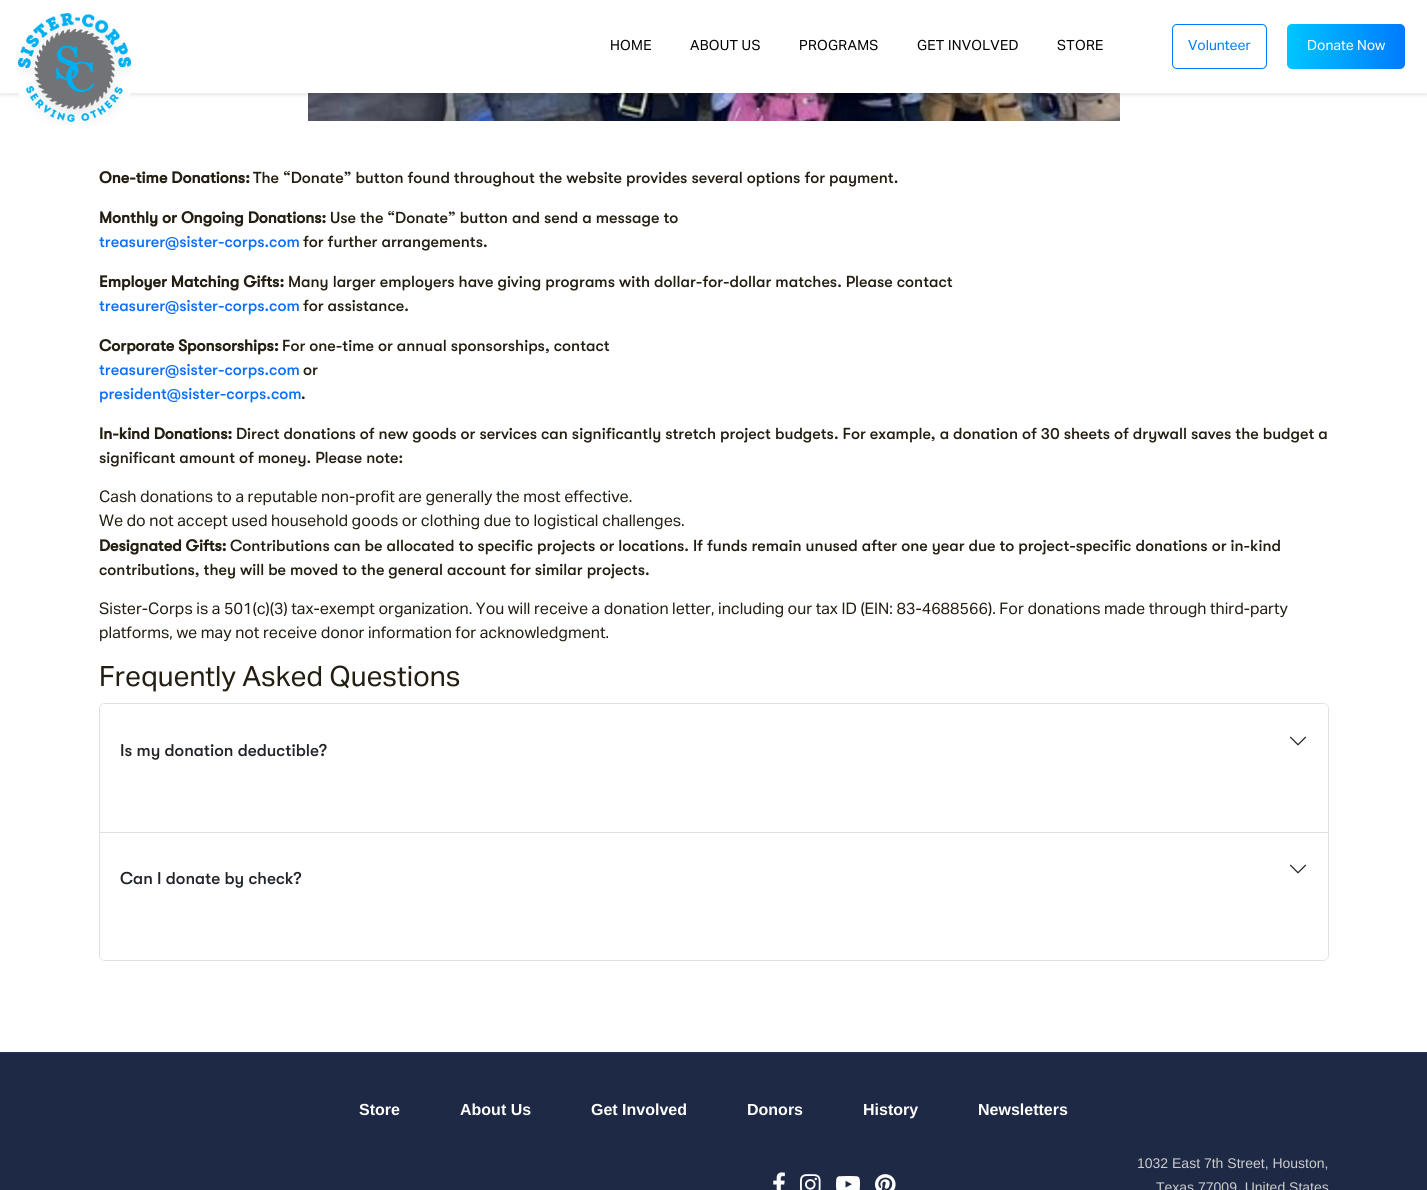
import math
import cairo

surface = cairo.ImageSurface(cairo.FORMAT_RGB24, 1427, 1190)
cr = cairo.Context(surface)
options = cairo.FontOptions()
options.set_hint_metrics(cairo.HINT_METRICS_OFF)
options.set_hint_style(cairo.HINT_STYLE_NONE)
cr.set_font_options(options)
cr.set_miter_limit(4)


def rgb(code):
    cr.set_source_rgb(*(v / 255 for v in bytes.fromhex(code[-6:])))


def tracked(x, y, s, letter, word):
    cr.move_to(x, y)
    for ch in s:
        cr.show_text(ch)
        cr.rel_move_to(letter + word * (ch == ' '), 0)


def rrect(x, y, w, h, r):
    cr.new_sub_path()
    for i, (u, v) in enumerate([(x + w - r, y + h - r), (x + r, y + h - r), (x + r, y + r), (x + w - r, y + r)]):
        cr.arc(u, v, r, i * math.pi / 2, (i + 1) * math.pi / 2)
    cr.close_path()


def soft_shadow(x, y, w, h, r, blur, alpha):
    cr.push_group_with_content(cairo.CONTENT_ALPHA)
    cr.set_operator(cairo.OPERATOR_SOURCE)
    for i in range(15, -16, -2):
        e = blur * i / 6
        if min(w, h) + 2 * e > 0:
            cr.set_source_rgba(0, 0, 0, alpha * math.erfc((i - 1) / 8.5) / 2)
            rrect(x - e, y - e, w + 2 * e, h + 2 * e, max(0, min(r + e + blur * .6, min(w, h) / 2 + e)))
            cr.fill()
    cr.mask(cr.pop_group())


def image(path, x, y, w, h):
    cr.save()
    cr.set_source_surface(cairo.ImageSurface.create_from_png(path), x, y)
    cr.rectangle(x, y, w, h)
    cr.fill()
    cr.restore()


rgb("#ffffff")
cr.paint()
image("img/2.png", 308, 93, 812, 28)
rgb("#000000")
soft_shadow(0, 2, 1427, 93, 0, 2.5, 0.1)
rgb("#ffffff")
cr.rectangle(0, 0, 1427, 93)
cr.fill()
cr.new_path()
cr.move_to(12, 7)
cr.line_to(137, 7)
cr.line_to(137, 65.5)
cr.curve_to(137, 100, 109, 128, 74.5, 128)
cr.curve_to(40, 128, 12, 100, 12, 65.5)
cr.close_path()
cr.fill()
image("img/1.png", 17, 13, 115, 112)
rrect(1172.5, 24.5, 94, 44, 4.5)
rgb("#007bff")
cr.set_line_width(1)
cr.stroke()
gradient = cairo.LinearGradient(1287, 47, 1405, 46)
gradient.add_color_stop_rgba(0, 0, 0.776, 1, 1)
gradient.add_color_stop_rgba(1, 0, 0.482, 1, 1)
cr.set_source(gradient)
rrect(1287, 24, 118, 45, 5)
cr.fill()
cr.new_path()
cr.move_to(105, 703.5)
cr.line_to(1323, 703.5)
cr.curve_to(1326, 703.5, 1328.5, 706, 1328.5, 709)
cr.line_to(1328.5, 832.5)
cr.line_to(99.5, 832.5)
cr.line_to(99.5, 709)
cr.curve_to(99.5, 706, 102, 703.5, 105, 703.5)
cr.close_path()
rgb("#dee2e6")
cr.stroke()
rgb("#ffffff")
cr.new_path()
cr.move_to(105, 704)
cr.line_to(1323, 704)
cr.curve_to(1326, 704, 1328, 706, 1328, 709)
cr.line_to(1328, 777)
cr.line_to(100, 777)
cr.line_to(100, 709)
cr.curve_to(100, 706, 102, 704, 105, 704)
cr.close_path()
cr.fill()
image("img/3.png", 1289, 736, 18, 10)
rgb("#dee2e6")
cr.set_fill_rule(cairo.FILL_RULE_EVEN_ODD)
cr.new_path()
cr.move_to(99, 833)
cr.line_to(1329, 833)
cr.line_to(1329, 955)
cr.curve_to(1329, 958, 1326, 961, 1323, 961)
cr.line_to(105, 961)
cr.curve_to(102, 961, 99, 958, 99, 955)
cr.close_path()
cr.move_to(100, 833)
cr.line_to(1328, 833)
cr.line_to(1328, 955)
cr.curve_to(1328, 958, 1326, 960, 1323, 960)
cr.line_to(105, 960)
cr.curve_to(102, 960, 100, 958, 100, 955)
cr.close_path()
cr.fill()
image("img/3.png", 1289, 864, 18, 10)
rgb("#1e2a45")
cr.rectangle(0, 1053, 1427, 137)
cr.fill()
rgb("#293258")
cr.rectangle(0, 1052, 1427, 1)
cr.fill()
image("img/4.png", 773, 1172, 12, 18)
image("img/5.png", 800, 1174, 21, 16)
image("img/6.png", 836, 1176, 24, 14)
image("img/7.png", 875, 1174, 21, 16)
cr.select_font_face("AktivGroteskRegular")
cr.set_font_size(14)
rgb("#000000")
for x, y, s in [
    (610, 50, "HOME"),
    (690, 50, "ABOUT US"),
    (799, 50, "PROGRAMS"),
    (917, 50, "GET INVOLVED"),
    (1057, 50, "STORE"),
]:
    tracked(x, y, s, 0.25, 0)
rgb("#007bff")
cr.move_to(1188, 50)
cr.show_text("Volunteer")
rgb("#ffffff")
cr.move_to(1307, 50)
cr.show_text("Donate Now")
cr.select_font_face("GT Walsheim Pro", cairo.FONT_SLANT_NORMAL, cairo.FONT_WEIGHT_BOLD)
cr.set_font_size(16)
rgb("#241e12")
cr.move_to(99, 183)
cr.show_text("One-time Donations:")
cr.select_font_face("GT Walsheim Pro Medium")
cr.move_to(253, 183)
cr.show_text("The “Donate” button found throughout the website provides several options for payment.")
cr.select_font_face("GT Walsheim Pro", cairo.FONT_SLANT_NORMAL, cairo.FONT_WEIGHT_BOLD)
cr.move_to(99, 223)
cr.show_text("Monthly or Ongoing Donations:")
cr.select_font_face("GT Walsheim Pro Medium")
cr.move_to(330, 223)
cr.show_text("Use the “Donate” button and send a message to")
rgb("#0d6efd")
cr.move_to(99, 247)
cr.show_text("treasurer@sister-corps.com")
rgb("#241e12")
cr.move_to(303, 247)
cr.show_text("for further arrangements.")
cr.select_font_face("GT Walsheim Pro", cairo.FONT_SLANT_NORMAL, cairo.FONT_WEIGHT_BOLD)
cr.move_to(99, 287)
cr.show_text("Employer Matching Gifts:")
cr.select_font_face("GT Walsheim Pro Medium")
cr.move_to(288, 287)
cr.show_text("Many larger employers have giving programs with dollar-for-dollar matches. Please contact")
rgb("#0d6efd")
cr.move_to(99, 311)
cr.show_text("treasurer@sister-corps.com")
rgb("#241e12")
cr.move_to(303, 311)
cr.show_text("for assistance.")
cr.select_font_face("GT Walsheim Pro", cairo.FONT_SLANT_NORMAL, cairo.FONT_WEIGHT_BOLD)
cr.move_to(99, 351)
cr.show_text("Corporate Sponsorships:")
cr.select_font_face("GT Walsheim Pro Medium")
cr.move_to(282, 351)
cr.show_text("For one-time or annual sponsorships, contact")
rgb("#0d6efd")
cr.move_to(99, 375)
cr.show_text("treasurer@sister-corps.com")
rgb("#241e12")
cr.move_to(303, 375)
cr.show_text("or")
rgb("#0d6efd")
cr.move_to(99, 399)
cr.show_text("president@sister-corps.com")
rgb("#241e12")
cr.move_to(301, 399)
cr.show_text(".")
cr.select_font_face("GT Walsheim Pro", cairo.FONT_SLANT_NORMAL, cairo.FONT_WEIGHT_BOLD)
cr.move_to(99, 439)
cr.show_text("In-kind Donations:")
cr.select_font_face("GT Walsheim Pro Medium")
cr.move_to(236, 439)
cr.show_text("Direct donations of new goods or services can significantly stretch project budgets. For example, a donation of 30 sheets of drywall saves the budget a")
cr.move_to(99, 463)
cr.show_text("significant amount of money. Please note:")
cr.select_font_face("AktivGroteskRegular")
cr.move_to(99, 502)
cr.show_text("Cash donations to a reputable non-profit are generally the most effective.")
cr.move_to(99, 526)
cr.show_text("We do not accept used household goods or clothing due to logistical challenges.")
cr.select_font_face("GT Walsheim Pro", cairo.FONT_SLANT_NORMAL, cairo.FONT_WEIGHT_BOLD)
cr.move_to(99, 551)
cr.show_text("Designated Gifts:")
cr.select_font_face("GT Walsheim Pro Medium")
cr.move_to(230, 551)
cr.show_text("Contributions can be allocated to specific projects or locations. If funds remain unused after one year due to project-specific donations or in-kind")
cr.move_to(99, 575)
cr.show_text("contributions, they will be moved to the general account for similar projects.")
cr.select_font_face("AktivGroteskRegular")
cr.move_to(99, 614)
cr.show_text("Sister-Corps is a 501(c)(3) tax-exempt organization. You will receive a donation letter, including our tax ID (EIN: 83-4688566). For donations made through third-party")
cr.move_to(99, 638)
cr.show_text("platforms, we may not receive donor information for acknowledgment.")
cr.set_font_size(28)
cr.move_to(99, 686)
cr.show_text("Frequently Asked Questions")
cr.select_font_face("GT Walsheim Pro Medium")
cr.set_font_size(17)
rgb("#212529")
cr.move_to(120, 756)
cr.show_text("Is my donation deductible?")
cr.move_to(120, 884)
cr.show_text("Can I donate by check?")
cr.select_font_face("Liberation Sans", cairo.FONT_SLANT_NORMAL, cairo.FONT_WEIGHT_BOLD)
cr.set_font_size(16)
rgb("#ffffff")
for x, y, s in [
    (359, 1115, "Store"),
    (460, 1115, "About Us"),
    (591, 1115, "Get Involved"),
    (747, 1115, "Donors"),
    (863, 1115, "History"),
    (978, 1115, "Newsletters"),
]:
    cr.move_to(x, y)
    cr.show_text(s)
cr.select_font_face("Liberation Sans")
cr.set_font_size(14)
rgb("#cccccc")
cr.move_to(1137, 1168)
cr.show_text("1032 East 7th Street, Houston,")
cr.move_to(1156, 1192)
cr.show_text("Texas 77009, United States")
surface.write_to_png("page.png")
